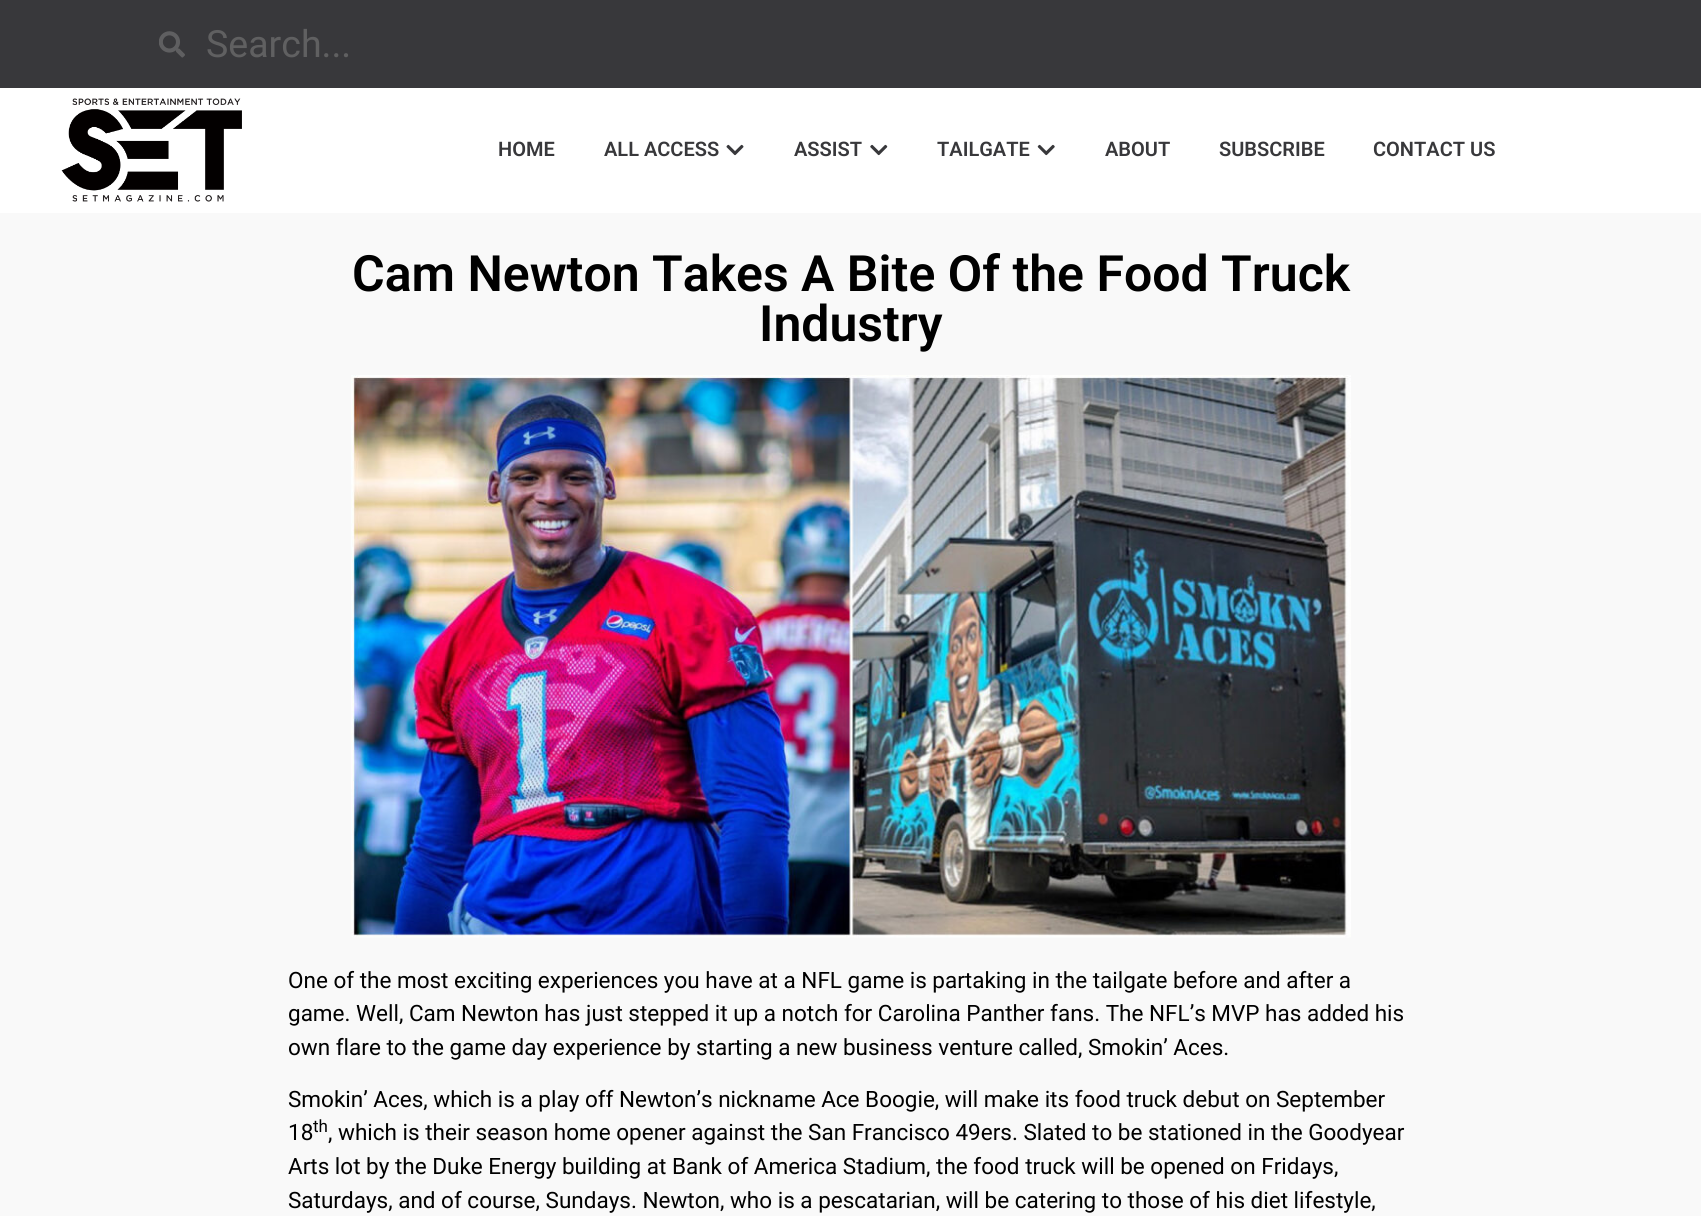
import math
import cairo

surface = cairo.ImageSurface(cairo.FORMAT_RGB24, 1701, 1216)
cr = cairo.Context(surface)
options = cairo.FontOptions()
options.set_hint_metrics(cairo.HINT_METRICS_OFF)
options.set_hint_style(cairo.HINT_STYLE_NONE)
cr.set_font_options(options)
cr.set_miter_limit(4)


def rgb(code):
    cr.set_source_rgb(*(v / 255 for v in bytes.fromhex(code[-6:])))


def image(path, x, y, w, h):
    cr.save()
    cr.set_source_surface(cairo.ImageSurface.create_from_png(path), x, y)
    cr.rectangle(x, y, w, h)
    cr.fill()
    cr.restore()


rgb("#f9f9f9")
cr.paint()
rgb("#38383b")
cr.rectangle(0, 0, 1701, 88)
cr.fill()
image("img/1.png", 159, 31, 26, 27)
rgb("#ffffff")
cr.rectangle(0, 88, 1701, 125)
cr.fill()
image("img/2.png", 61, 98, 181, 104)
image("img/3.png", 726, 144, 18, 12)
image("img/4.png", 870, 144, 18, 12)
image("img/5.png", 1037, 144, 18, 12)
image("img/6.png", 351, 375, 1000, 563)
cr.select_font_face("Roboto")
cr.set_font_size(37.5)
rgb("#606061")
cr.move_to(206, 57)
cr.show_text("Search...")
cr.select_font_face("Roboto SemiBold")
cr.set_font_size(20)
rgb("#38383b")
for x, y, s in [
    (498, 156, "HOME"),
    (604, 156, "ALL ACCESS"),
    (794, 156, "ASSIST"),
    (937, 156, "TAILGATE"),
    (1105, 156, "ABOUT"),
    (1219, 156, "SUBSCRIBE"),
    (1373, 156, "CONTACT US"),
]:
    cr.move_to(x, y)
    cr.show_text(s)
cr.set_font_size(50)
rgb("#000000")
cr.move_to(352, 291)
cr.show_text("Cam Newton Takes A Bite Of the Food Truck")
cr.move_to(759, 341)
cr.show_text("Industry")
cr.select_font_face("Roboto")
cr.set_font_size(22.5)
for x, y, s in [
    (288, 988, "One of the most exciting experiences you have at a NFL game is partaking in the tailgate before and after a"),
    (288, 1021, "game. Well, Cam Newton has just stepped it up a notch for Carolina Panther fans. The NFL’s MVP has added his"),
    (288, 1055, "own flare to the game day experience by starting a new business venture called, Smokin’ Aces."),
    (288, 1107, "Smokin’ Aces, which is a play off Newton’s nickname Ace Boogie, will make its food truck debut on September"),
    (288, 1140, "18"),
]:
    cr.move_to(x, y)
    cr.show_text(s)
cr.set_font_size(17)
cr.move_to(313, 1132)
cr.show_text("th")
cr.set_font_size(22.5)
for x, y, s in [
    (328, 1140, ", which is their season home opener against the San Francisco 49ers. Slated to be stationed in the Goodyear"),
    (288, 1174, "Arts lot by the Duke Energy building at Bank of America Stadium, the food truck will be opened on Fridays,"),
    (288, 1208, "Saturdays, and of course, Sundays. Newton, who is a pescatarian, will be catering to those of his diet lifestyle,"),
]:
    cr.move_to(x, y)
    cr.show_text(s)
surface.write_to_png("page.png")
